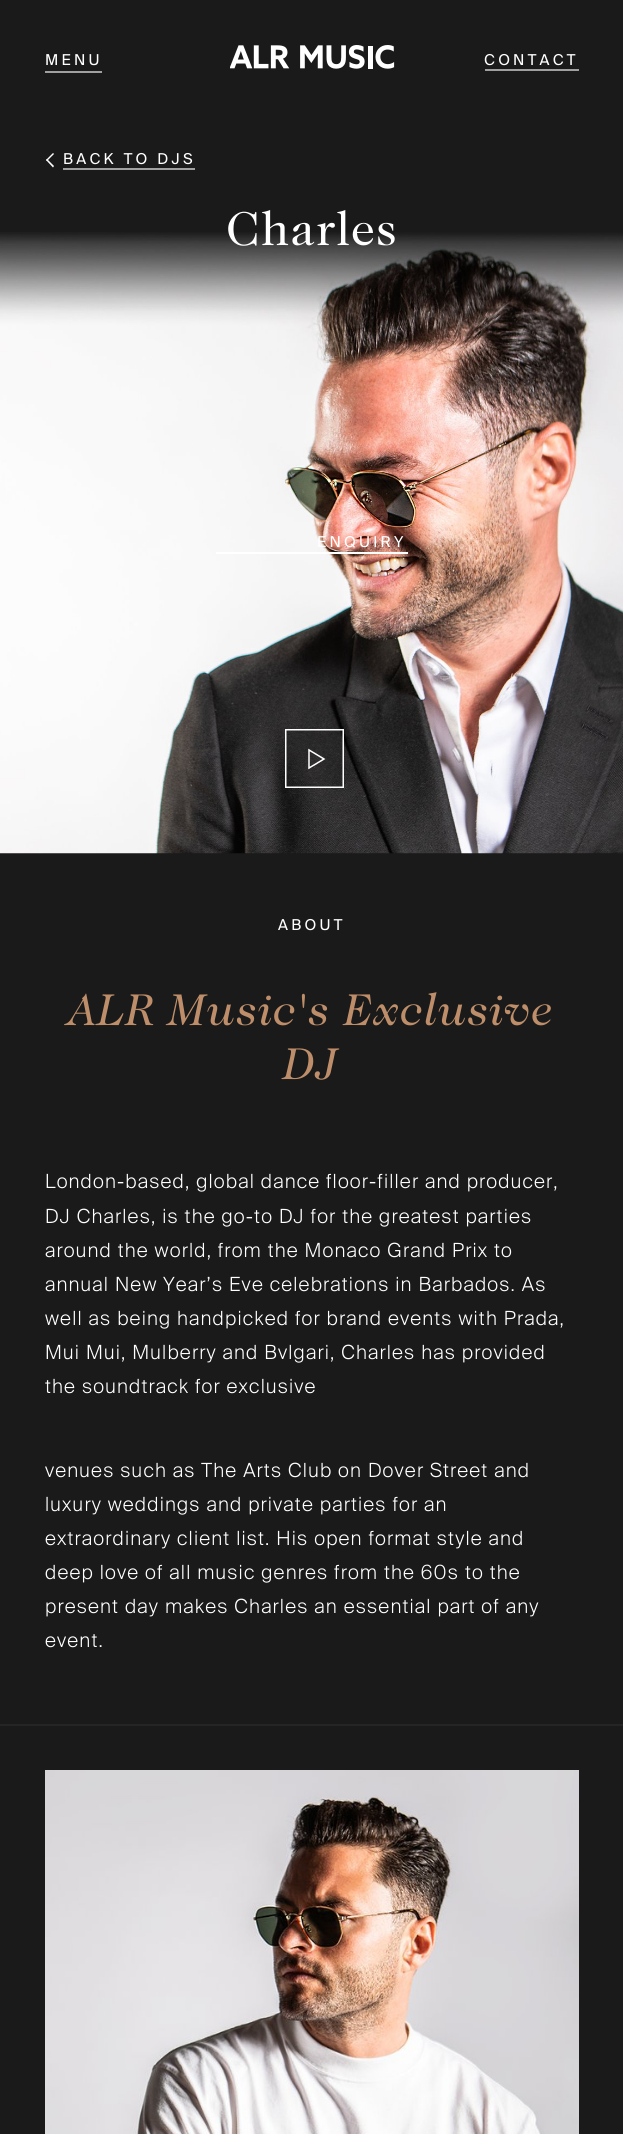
import math
import cairo

surface = cairo.ImageSurface(cairo.FORMAT_RGB24, 623, 2134)
cr = cairo.Context(surface)
options = cairo.FontOptions()
options.set_hint_metrics(cairo.HINT_METRICS_OFF)
options.set_hint_style(cairo.HINT_STYLE_NONE)
cr.set_font_options(options)
cr.set_miter_limit(4)


def rgb(code):
    cr.set_source_rgb(*(v / 255 for v in bytes.fromhex(code[-6:])))


def tracked(x, y, s, letter, word):
    cr.move_to(x, y)
    for ch in s:
        cr.show_text(ch)
        cr.rel_move_to(letter + word * (ch == ' '), 0)


def image(path, x, y, w, h):
    cr.save()
    cr.set_source_surface(cairo.ImageSurface.create_from_png(path), x, y)
    cr.rectangle(x, y, w, h)
    cr.fill()
    cr.restore()


rgb("#1a1a1a")
cr.paint()
rgb("#a0a0a0")
cr.rectangle(45, 71, 57, 2)
cr.fill()
image("img/1.png", 230, 45, 165, 24)
cr.rectangle(485, 69, 94, 2)
cr.fill()
rgb("#ffffff")
cr.new_path()
cr.move_to(53, 167.5)
cr.line_to(46, 160)
cr.line_to(47, 159)
cr.line_to(54, 166)
cr.close_path()
cr.fill()
cr.new_path()
cr.move_to(47, 161)
cr.line_to(46, 160)
cr.line_to(53, 153)
cr.line_to(54, 154)
cr.close_path()
cr.fill()
rgb("#a0a0a0")
cr.rectangle(63, 168, 132, 2)
cr.fill()
image("img/2.png", 0, 232, 623, 622)
rgb("#ffffff")
cr.rectangle(216, 552, 192, 2)
cr.fill()
cr.set_source_rgba(0.102, 0.102, 0.102, 0.2)
cr.rectangle(285.75, 729.75, 57.5, 57.5)
cr.fill_preserve()
rgb("#ffffff")
cr.set_line_width(1.5)
cr.stroke()
cr.new_path()
cr.move_to(324, 759)
cr.line_to(309, 768)
cr.line_to(309, 750)
cr.close_path()
cr.stroke()
rgb("#252525")
cr.rectangle(0, 1724, 623, 2)
cr.fill()
image("img/3.png", 45, 1770, 534, 364)
cr.select_font_face("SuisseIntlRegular")
cr.set_font_size(15)
rgb("#ffffff")
for x, y, s in [
    (45, 65, "MENU"),
    (484, 65, "CONTACT"),
    (63, 164, "BACK TO DJS"),
]:
    tracked(x, y, s, 3.25, 0)
cr.select_font_face("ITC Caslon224")
cr.set_font_size(48)
tracked(226, 245, "Charles", 1.17, 0)
cr.select_font_face("SuisseIntlRegular")
cr.set_font_size(15)
tracked(317, 547, "ENQUIRY", 3.25, 0)
tracked(278, 930, "ABOUT", 3.25, 0)
cr.select_font_face("ITC Caslon224", cairo.FONT_SLANT_ITALIC)
cr.set_font_size(45)
rgb("#be8e6a")
tracked(69, 1025, "ALR Music's Exclusive", 1.17, 0)
tracked(284, 1079, "DJ", 1.17, 0)
cr.select_font_face("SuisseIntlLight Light")
cr.set_font_size(19.5)
rgb("#ffffff")
for x, y, s in [
    (45, 1188, "London-based, global dance floor-filler and producer,"),
    (45, 1223, "DJ Charles, is the go-to DJ for the greatest parties"),
    (45, 1257, "around the world, from the Monaco Grand Prix to"),
    (45, 1291, "annual New Year’s Eve celebrations in Barbados. As"),
    (45, 1325, "well as being handpicked for brand events with Prada,"),
    (45, 1359, "Mui Mui, Mulberry and Bvlgari, Charles has provided"),
    (45, 1393, "the soundtrack for exclusive"),
    (45, 1477, "venues such as The Arts Club on Dover Street and"),
    (45, 1511, "luxury weddings and private parties for an"),
    (45, 1545, "extraordinary client list. His open format style and"),
    (45, 1579, "deep love of all music genres from the 60s to the"),
    (45, 1613, "present day makes Charles an essential part of any"),
    (45, 1647, "event."),
]:
    tracked(x, y, s, 1.17, 0)
surface.write_to_png("page.png")
